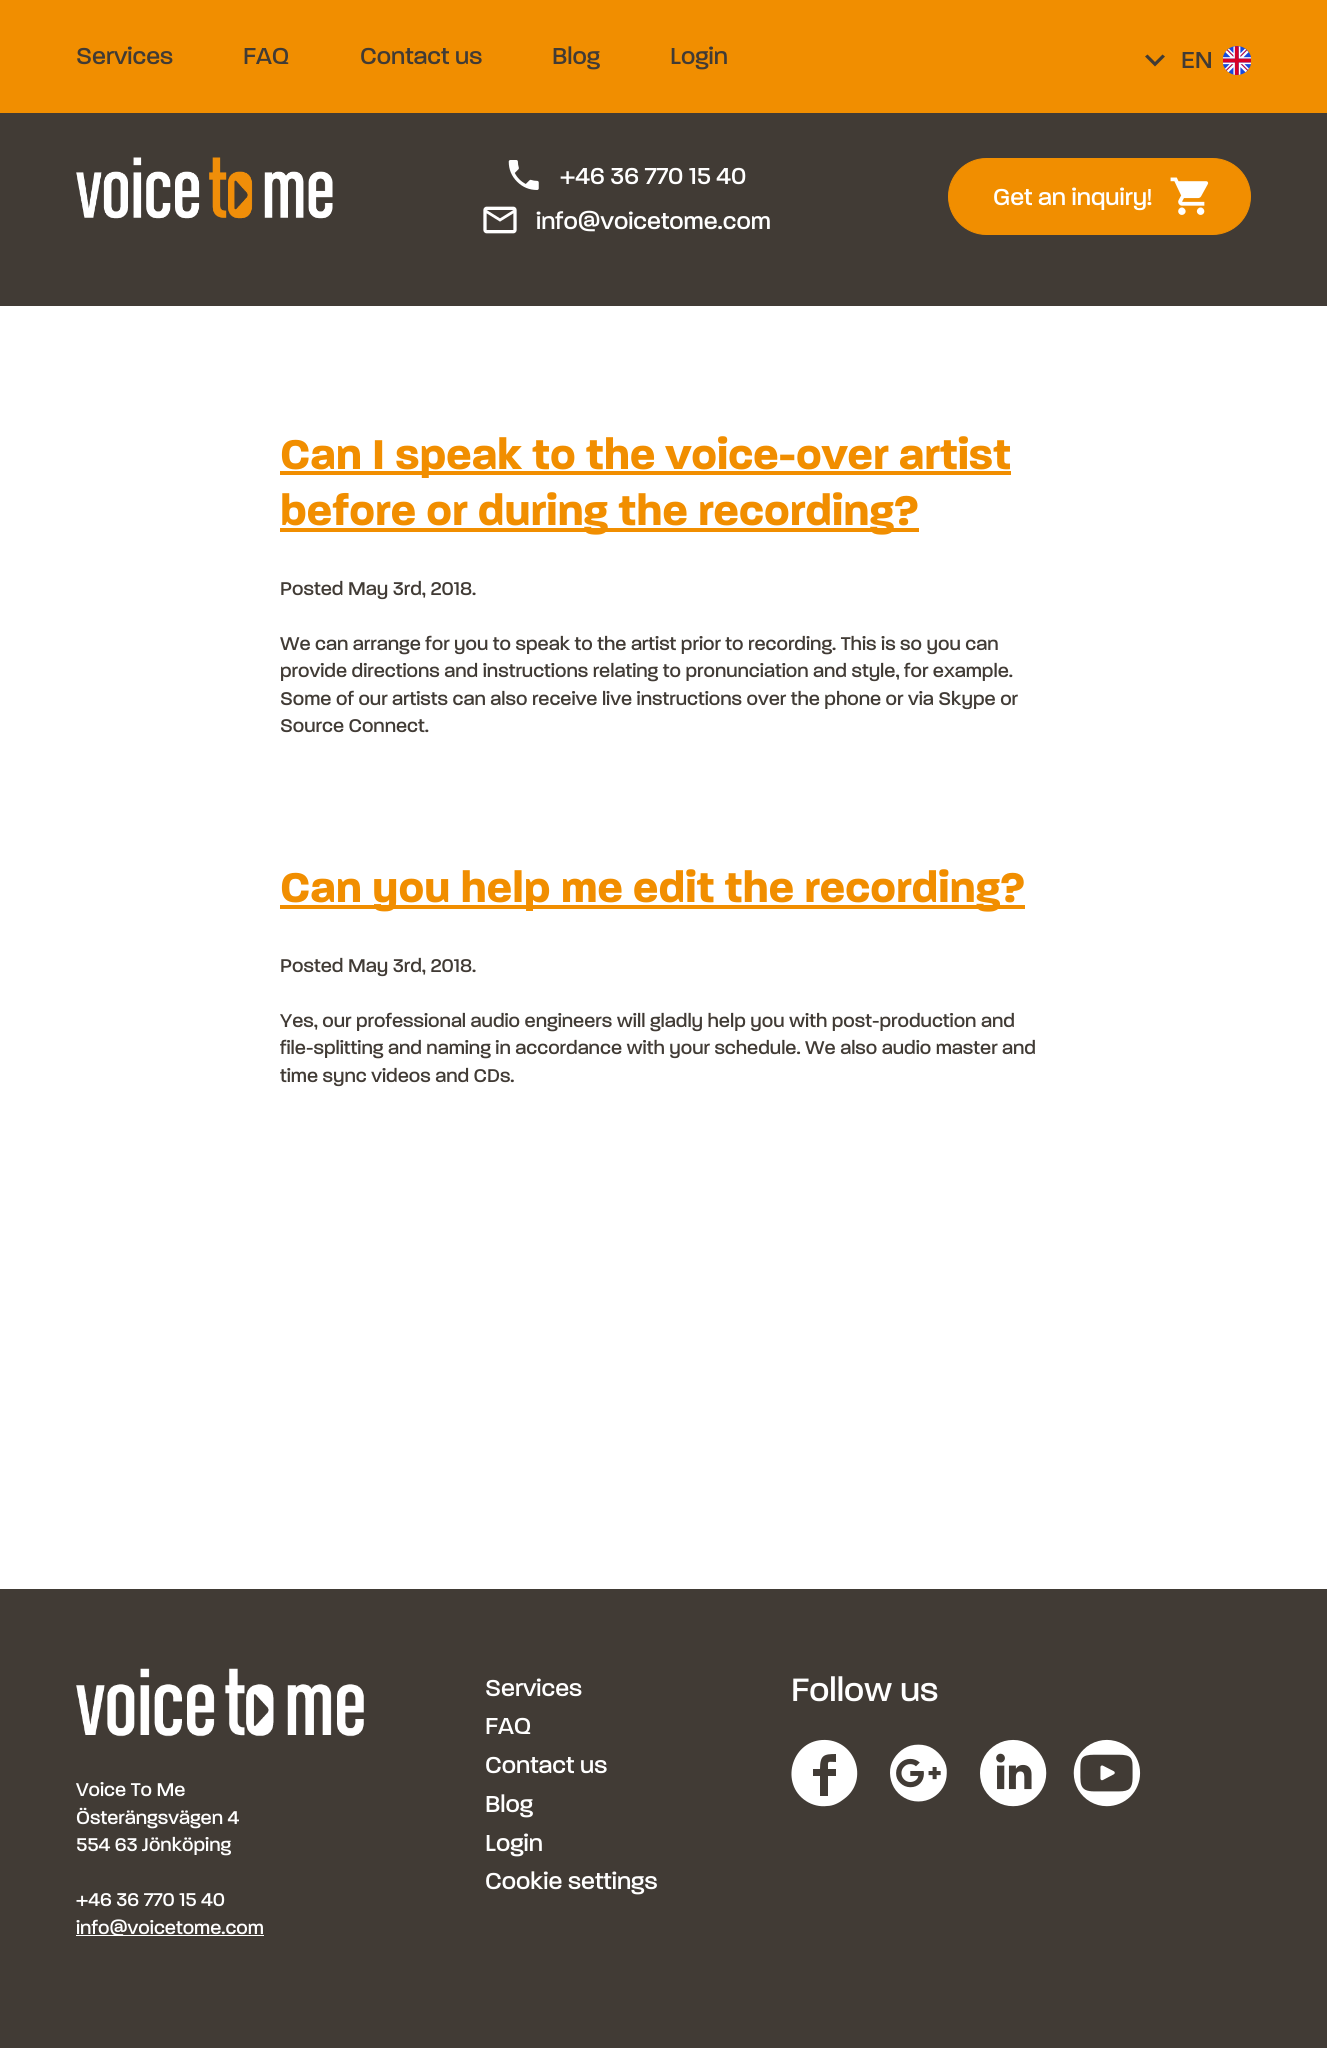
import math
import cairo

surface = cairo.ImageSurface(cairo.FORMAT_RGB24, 1327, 2048)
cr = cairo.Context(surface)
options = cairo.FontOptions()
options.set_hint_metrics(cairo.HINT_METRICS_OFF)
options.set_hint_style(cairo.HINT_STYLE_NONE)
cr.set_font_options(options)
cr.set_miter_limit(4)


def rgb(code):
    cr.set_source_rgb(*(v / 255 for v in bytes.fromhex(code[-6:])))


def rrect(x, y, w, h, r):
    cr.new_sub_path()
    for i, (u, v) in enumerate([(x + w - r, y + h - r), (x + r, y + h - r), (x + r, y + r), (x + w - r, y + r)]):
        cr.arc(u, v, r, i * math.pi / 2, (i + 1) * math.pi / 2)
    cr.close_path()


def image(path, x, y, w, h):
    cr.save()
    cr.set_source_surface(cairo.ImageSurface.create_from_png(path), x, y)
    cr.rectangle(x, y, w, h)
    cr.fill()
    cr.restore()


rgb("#ffffff")
cr.paint()
rgb("#f18e00")
cr.rectangle(0, 0, 1327, 113)
cr.fill()
rgb("#413b35")
cr.new_path()
cr.move_to(1147.5, 54.5)
cr.line_to(1155, 62)
cr.line_to(1162.5, 54.5)
cr.line_to(1165, 56.5)
cr.line_to(1155, 66.5)
cr.line_to(1145, 56.5)
cr.close_path()
cr.fill()
image("img/1.png", 1223, 46, 28, 29)
cr.rectangle(0, 113, 1327, 193)
cr.fill()
image("img/2.png", 76, 157, 257, 62)
image("img/3.png", 508, 160, 31, 30)
image("img/4.png", 483, 206, 34, 28)
rgb("#f18e00")
rrect(948.5, 158.5, 302, 76, 38)
cr.fill_preserve()
cr.set_line_width(1)
cr.stroke()
image("img/5.png", 1170, 177, 39, 38)
for x, y, w, h, color in [
    (280, 471, 731, 4, "#f18e00"),
    (280, 528, 639, 4, "#f18e00"),
    (280, 905, 745, 4, "#f18e00"),
    (0, 1589, 1327, 459, "#413b35"),
]:
    rgb(color)
    cr.rectangle(x, y, w, h)
    cr.fill()
image("img/6.png", 76, 1668, 288, 69)
rgb("#ffffff")
cr.rectangle(76, 1935, 188, 1)
cr.fill()
cr.new_path()
cr.move_to(822, 1740)
cr.curve_to(791, 1742, 780, 1784, 806, 1801)
cr.curve_to(812, 1805, 820, 1807, 827, 1806)
cr.curve_to(833, 1806, 839, 1803, 844, 1799)
cr.curve_to(870, 1780, 855, 1738, 822, 1740)
cr.close_path()
cr.move_to(836, 1758)
cr.line_to(836, 1762)
cr.curve_to(827, 1762, 828, 1760, 828, 1769)
cr.line_to(836, 1769)
cr.line_to(836, 1776)
cr.line_to(828, 1776)
cr.line_to(828, 1796)
cr.line_to(820, 1796)
cr.line_to(820, 1776)
cr.line_to(813, 1776)
cr.line_to(813, 1769)
cr.line_to(820, 1769)
cr.curve_to(820, 1755, 824, 1754, 836, 1754)
cr.close_path()
cr.fill()
image("img/7.png", 890, 1744, 57, 58)
image("img/8.png", 980, 1739, 67, 68)
image("img/9.png", 1073, 1739, 68, 68)
cr.select_font_face("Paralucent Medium")
cr.set_font_size(25)
rgb("#413b35")
for x, y, s in [
    (76, 64, "Services"),
    (243, 64, "FAQ"),
    (360, 64, "Contact us"),
    (552, 64, "Blog"),
    (670, 64, "Login"),
    (1181, 68, "EN"),
]:
    cr.move_to(x, y)
    cr.show_text(s)
rgb("#ffffff")
for x, y, s in [
    (560, 184, "+46 36 770 15 40"),
    (536, 229, "info@voicetome.com"),
    (993, 205, "Get an inquiry!"),
]:
    cr.move_to(x, y)
    cr.show_text(s)
cr.select_font_face("Paralucent", cairo.FONT_SLANT_NORMAL, cairo.FONT_WEIGHT_BOLD)
cr.set_font_size(45)
rgb("#f18e00")
cr.move_to(280, 469)
cr.show_text("Can I speak to the voice-over artist")
cr.move_to(280, 525)
cr.show_text("before or during the recording?")
cr.select_font_face("Paralucent Medium")
cr.set_font_size(20)
rgb("#413b35")
for x, y, s in [
    (280, 595, "Posted May 3rd, 2018."),
    (280, 650, "We can arrange for you to speak to the artist prior to recording. This is so you can"),
    (280, 677, "provide directions and instructions relating to pronunciation and style, for example."),
    (280, 705, "Some of our artists can also receive live instructions over the phone or via Skype or"),
    (280, 732, "Source Connect."),
]:
    cr.move_to(x, y)
    cr.show_text(s)
cr.select_font_face("Paralucent", cairo.FONT_SLANT_NORMAL, cairo.FONT_WEIGHT_BOLD)
cr.set_font_size(45)
rgb("#f18e00")
cr.move_to(280, 902)
cr.show_text("Can you help me edit the recording?")
cr.select_font_face("Paralucent Medium")
cr.set_font_size(20)
rgb("#413b35")
for x, y, s in [
    (280, 972, "Posted May 3rd, 2018."),
    (280, 1027, "Yes, our professional audio engineers will gladly help you with post-production and"),
    (280, 1054, "file-splitting and naming in accordance with your schedule. We also audio master and"),
    (280, 1082, "time sync videos and CDs."),
]:
    cr.move_to(x, y)
    cr.show_text(s)
rgb("#ffffff")
for x, y, s in [
    (76, 1796, "Voice To Me"),
    (76, 1824, "Österängsvägen 4"),
    (76, 1851, "554 63 Jönköping"),
    (76, 1906, "+46 36 770 15 40"),
    (76, 1934, "info@voicetome.com"),
]:
    cr.move_to(x, y)
    cr.show_text(s)
cr.set_font_size(25)
for x, y, s in [
    (485, 1696, "Services"),
    (485, 1734, "FAQ"),
    (485, 1773, "Contact us"),
    (485, 1812, "Blog"),
    (485, 1851, "Login"),
    (485, 1889, "Cookie settings"),
]:
    cr.move_to(x, y)
    cr.show_text(s)
cr.set_font_size(35)
cr.move_to(791, 1701)
cr.show_text("Follow us")
surface.write_to_png("page.png")
